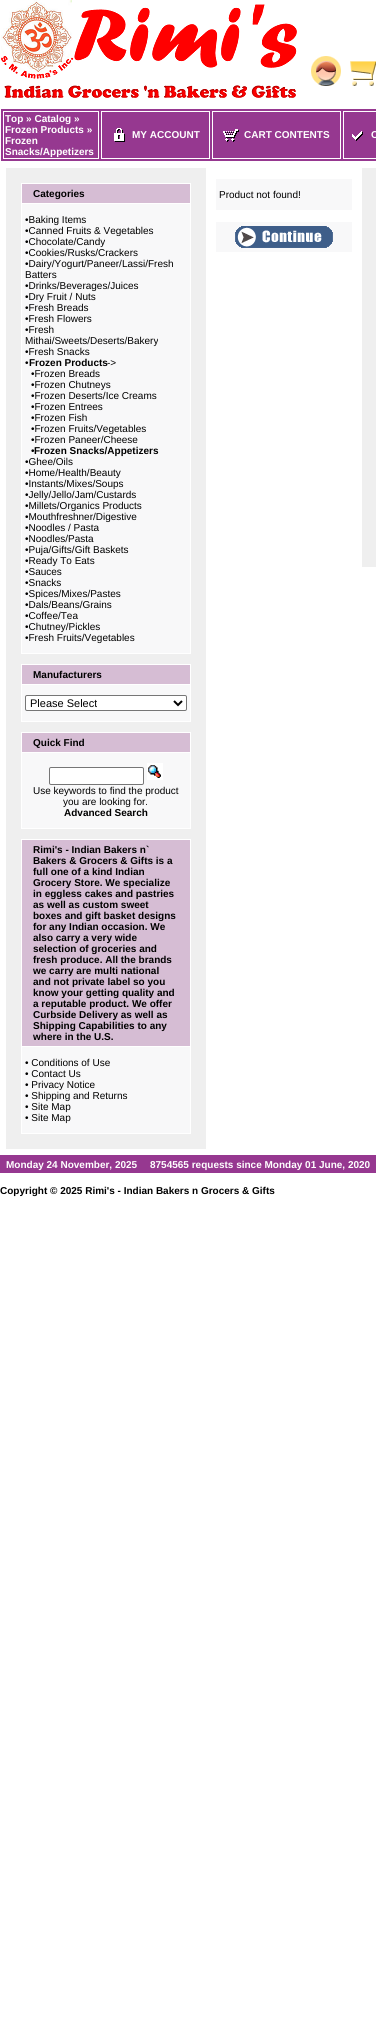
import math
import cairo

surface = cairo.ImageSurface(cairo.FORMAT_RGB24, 376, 2044)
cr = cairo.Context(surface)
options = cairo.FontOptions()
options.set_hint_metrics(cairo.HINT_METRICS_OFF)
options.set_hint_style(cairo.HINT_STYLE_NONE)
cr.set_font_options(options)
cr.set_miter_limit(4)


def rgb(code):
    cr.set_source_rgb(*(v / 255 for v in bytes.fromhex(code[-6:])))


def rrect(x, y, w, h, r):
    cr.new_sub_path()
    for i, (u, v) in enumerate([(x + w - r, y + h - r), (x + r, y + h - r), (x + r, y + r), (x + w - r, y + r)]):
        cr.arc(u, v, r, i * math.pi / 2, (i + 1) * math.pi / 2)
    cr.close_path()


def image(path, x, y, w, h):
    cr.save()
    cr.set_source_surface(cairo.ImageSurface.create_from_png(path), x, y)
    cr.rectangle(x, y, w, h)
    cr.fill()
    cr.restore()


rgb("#ffffff")
cr.paint()
image("img/1.png", 1, 0, 296, 98)
image("img/2.png", 311, 56, 30, 30)
image("img/3.png", 350, 61, 26, 25)
rgb("#963890")
cr.rectangle(1, 109, 375, 52)
cr.fill()
cr.rectangle(3.5, 111.5, 95, 47)
rgb("#ffffff")
cr.set_line_width(1)
cr.stroke()
cr.rectangle(101.5, 111.5, 108, 47)
cr.stroke()
image("img/4.png", 114, 128, 11, 14)
cr.rectangle(212.5, 111.5, 128, 47)
cr.stroke()
image("img/5.png", 223, 129, 16, 13)
cr.rectangle(343.5, 111.5, 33, 47)
cr.stroke()
image("img/6.png", 352, 131, 11, 10)
for x, y, w, h, color in [
    (6, 168, 200, 981, "#efefef"),
    (22, 184, 168, 19, "#d6bdd4"),
    (21, 183, 170, 1, "#ffffff"),
    (21, 183, 1, 20, "#ffffff"),
    (190, 183, 1, 20, "#ffffff"),
    (21, 203, 170, 451, "#ffffff"),
    (22, 204, 168, 449, "#f8f8f9"),
    (22, 665, 168, 19, "#d6bdd4"),
    (21, 664, 170, 1, "#ffffff"),
    (21, 664, 1, 20, "#ffffff"),
    (190, 664, 1, 20, "#ffffff"),
    (21, 684, 170, 38, "#ffffff"),
    (22, 685, 168, 36, "#f8f8f9"),
]:
    rgb(color)
    cr.rectangle(x, y, w, h)
    cr.fill()
rgb("#ffffff")
rrect(25.5, 695.5, 161, 15, 1.5)
cr.fill_preserve()
rgb("#767676")
cr.stroke()
cr.new_path()
cr.move_to(174, 701)
cr.line_to(178, 705)
cr.line_to(182, 701)
rgb("#000000")
cr.set_line_width(2)
cr.stroke()
for x, y, w, h, color in [
    (22, 733, 168, 19, "#d6bdd4"),
    (21, 732, 170, 1, "#ffffff"),
    (21, 732, 1, 20, "#ffffff"),
    (190, 732, 1, 20, "#ffffff"),
    (21, 752, 170, 77, "#ffffff"),
    (22, 753, 168, 75, "#f8f8f9"),
]:
    rgb(color)
    cr.rectangle(x, y, w, h)
    cr.fill()
rgb("#ffffff")
rrect(49.5, 767.5, 94, 17, 1.5)
cr.fill_preserve()
rgb("#767676")
cr.set_line_width(1)
cr.stroke()
image("img/7.png", 147, 763, 16, 17)
for x, y, w, h, color in [
    (22, 840, 168, 206, "#d6bdd4"),
    (21, 839, 170, 1, "#ffffff"),
    (21, 839, 1, 207, "#ffffff"),
    (190, 839, 1, 207, "#ffffff"),
    (21, 1046, 170, 88, "#ffffff"),
    (22, 1047, 168, 86, "#f8f8f9"),
    (216, 179, 136, 31, "#f8f8f9"),
    (216, 222, 136, 30, "#f8f8f9"),
]:
    rgb(color)
    cr.rectangle(x, y, w, h)
    cr.fill()
image("img/8.png", 235, 226, 98, 22)
rgb("#efefef")
cr.rectangle(362, 168, 14, 399)
cr.fill()
rgb("#963890")
cr.rectangle(0, 1155, 376, 18)
cr.fill()
cr.select_font_face("Liberation Sans", cairo.FONT_SLANT_NORMAL, cairo.FONT_WEIGHT_BOLD)
cr.set_font_size(10)
rgb("#ffffff")
for x, y, s in [
    (5, 122, "Top » Catalog »"),
    (5, 133, "Frozen Products »"),
    (5, 144, "Frozen"),
    (5, 155, "Snacks/Appetizers"),
    (132, 138, "MY ACCOUNT"),
    (244, 138, "CART CONTENTS"),
    (371, 138, "C"),
]:
    cr.move_to(x, y)
    cr.show_text(s)
rgb("#000000")
cr.move_to(33, 197)
cr.show_text("Categories")
cr.select_font_face("Liberation Sans")
for x, y, s in [
    (25, 223, "•Baking Items"),
    (25, 234, "•Canned Fruits & Vegetables"),
    (25, 245, "•Chocolate/Candy"),
    (25, 256, "•Cookies/Rusks/Crackers"),
    (25, 267, "•Dairy/Yogurt/Paneer/Lassi/Fresh"),
    (25, 278, "Batters"),
    (25, 289, "•Drinks/Beverages/Juices"),
    (25, 300, "•Dry Fruit / Nuts"),
    (25, 311, "•Fresh Breads"),
    (25, 322, "•Fresh Flowers"),
    (25, 333, "•Fresh"),
    (25, 344, "Mithai/Sweets/Deserts/Bakery"),
    (25, 355, "•Fresh Snacks"),
    (25, 366, "•"),
]:
    cr.move_to(x, y)
    cr.show_text(s)
cr.select_font_face("Liberation Sans", cairo.FONT_SLANT_NORMAL, cairo.FONT_WEIGHT_BOLD)
cr.move_to(29, 366)
cr.show_text("Frozen Products")
cr.select_font_face("Liberation Sans")
for x, y, s in [
    (107, 366, "->"),
    (31, 377, "•Frozen Breads"),
    (31, 388, "•Frozen Chutneys"),
    (31, 399, "•Frozen Deserts/Ice Creams"),
    (31, 410, "•Frozen Entrees"),
    (31, 421, "•Frozen Fish"),
    (31, 432, "•Frozen Fruits/Vegetables"),
    (31, 443, "•Frozen Paneer/Cheese"),
    (31, 454, "•"),
]:
    cr.move_to(x, y)
    cr.show_text(s)
cr.select_font_face("Liberation Sans", cairo.FONT_SLANT_NORMAL, cairo.FONT_WEIGHT_BOLD)
cr.move_to(34, 454)
cr.show_text("Frozen Snacks/Appetizers")
cr.select_font_face("Liberation Sans")
for x, y, s in [
    (25, 465, "•Ghee/Oils"),
    (25, 476, "•Home/Health/Beauty"),
    (25, 487, "•Instants/Mixes/Soups"),
    (25, 498, "•Jelly/Jello/Jam/Custards"),
    (25, 509, "•Millets/Organics Products"),
    (25, 520, "•Mouthfreshner/Digestive"),
    (25, 531, "•Noodles / Pasta"),
    (25, 542, "•Noodles/Pasta"),
    (25, 553, "•Puja/Gifts/Gift Baskets"),
    (25, 564, "•Ready To Eats"),
    (25, 575, "•Sauces"),
    (25, 586, "•Snacks"),
    (25, 597, "•Spices/Mixes/Pastes"),
    (25, 608, "•Dals/Beans/Grains"),
    (25, 619, "•Coffee/Tea"),
    (25, 630, "•Chutney/Pickles"),
    (25, 641, "•Fresh Fruits/Vegetables"),
]:
    cr.move_to(x, y)
    cr.show_text(s)
cr.select_font_face("Liberation Sans", cairo.FONT_SLANT_NORMAL, cairo.FONT_WEIGHT_BOLD)
cr.move_to(33, 678)
cr.show_text("Manufacturers")
cr.select_font_face("Liberation Sans")
cr.set_font_size(11)
cr.move_to(30, 707)
cr.show_text("Please Select")
cr.select_font_face("Liberation Sans", cairo.FONT_SLANT_NORMAL, cairo.FONT_WEIGHT_BOLD)
cr.set_font_size(10)
cr.move_to(33, 746)
cr.show_text("Quick Find")
cr.select_font_face("Liberation Sans")
cr.move_to(33, 794)
cr.show_text("Use keywords to find the product")
cr.move_to(63, 805)
cr.show_text("you are looking for.")
cr.select_font_face("Liberation Sans", cairo.FONT_SLANT_NORMAL, cairo.FONT_WEIGHT_BOLD)
for x, y, s in [
    (64, 816, "Advanced Search"),
    (33, 853, "Rimi's - Indian Bakers n`"),
    (33, 864, "Bakers & Grocers & Gifts is a"),
    (33, 875, "full one of a kind Indian"),
    (33, 886, "Grocery Store. We specialize"),
    (33, 897, "in eggless cakes and pastries"),
    (33, 908, "as well as custom sweet"),
    (33, 919, "boxes and gift basket designs"),
    (33, 930, "for any Indian occasion. We"),
    (33, 941, "also carry a very wide"),
    (33, 952, "selection of groceries and"),
    (33, 963, "fresh produce. All the brands"),
    (33, 974, "we carry are multi national"),
    (33, 985, "and not private label so you"),
    (33, 996, "know your getting quality and"),
    (33, 1007, "a reputable product. We offer"),
    (33, 1018, "Curbside Delivery as well as"),
    (33, 1029, "Shipping Capabilities to any"),
    (33, 1040, "where in the U.S."),
]:
    cr.move_to(x, y)
    cr.show_text(s)
cr.select_font_face("Liberation Sans")
for x, y, s in [
    (25, 1066, "• Conditions of Use"),
    (25, 1077, "• Contact Us"),
    (25, 1088, "• Privacy Notice"),
    (25, 1099, "• Shipping and Returns"),
    (25, 1110, "• Site Map"),
    (25, 1121, "• Site Map"),
    (219, 198, "Product not found!"),
]:
    cr.move_to(x, y)
    cr.show_text(s)
cr.select_font_face("Liberation Sans", cairo.FONT_SLANT_NORMAL, cairo.FONT_WEIGHT_BOLD)
rgb("#ffffff")
cr.move_to(6, 1168)
cr.show_text("Monday 24 November, 2025")
cr.move_to(150, 1168)
cr.show_text("8754565 requests since Monday 01 June, 2020")
rgb("#000000")
cr.move_to(0, 1194)
cr.show_text("Copyright © 2025 Rimi's - Indian Bakers n Grocers & Gifts")
surface.write_to_png("page.png")
